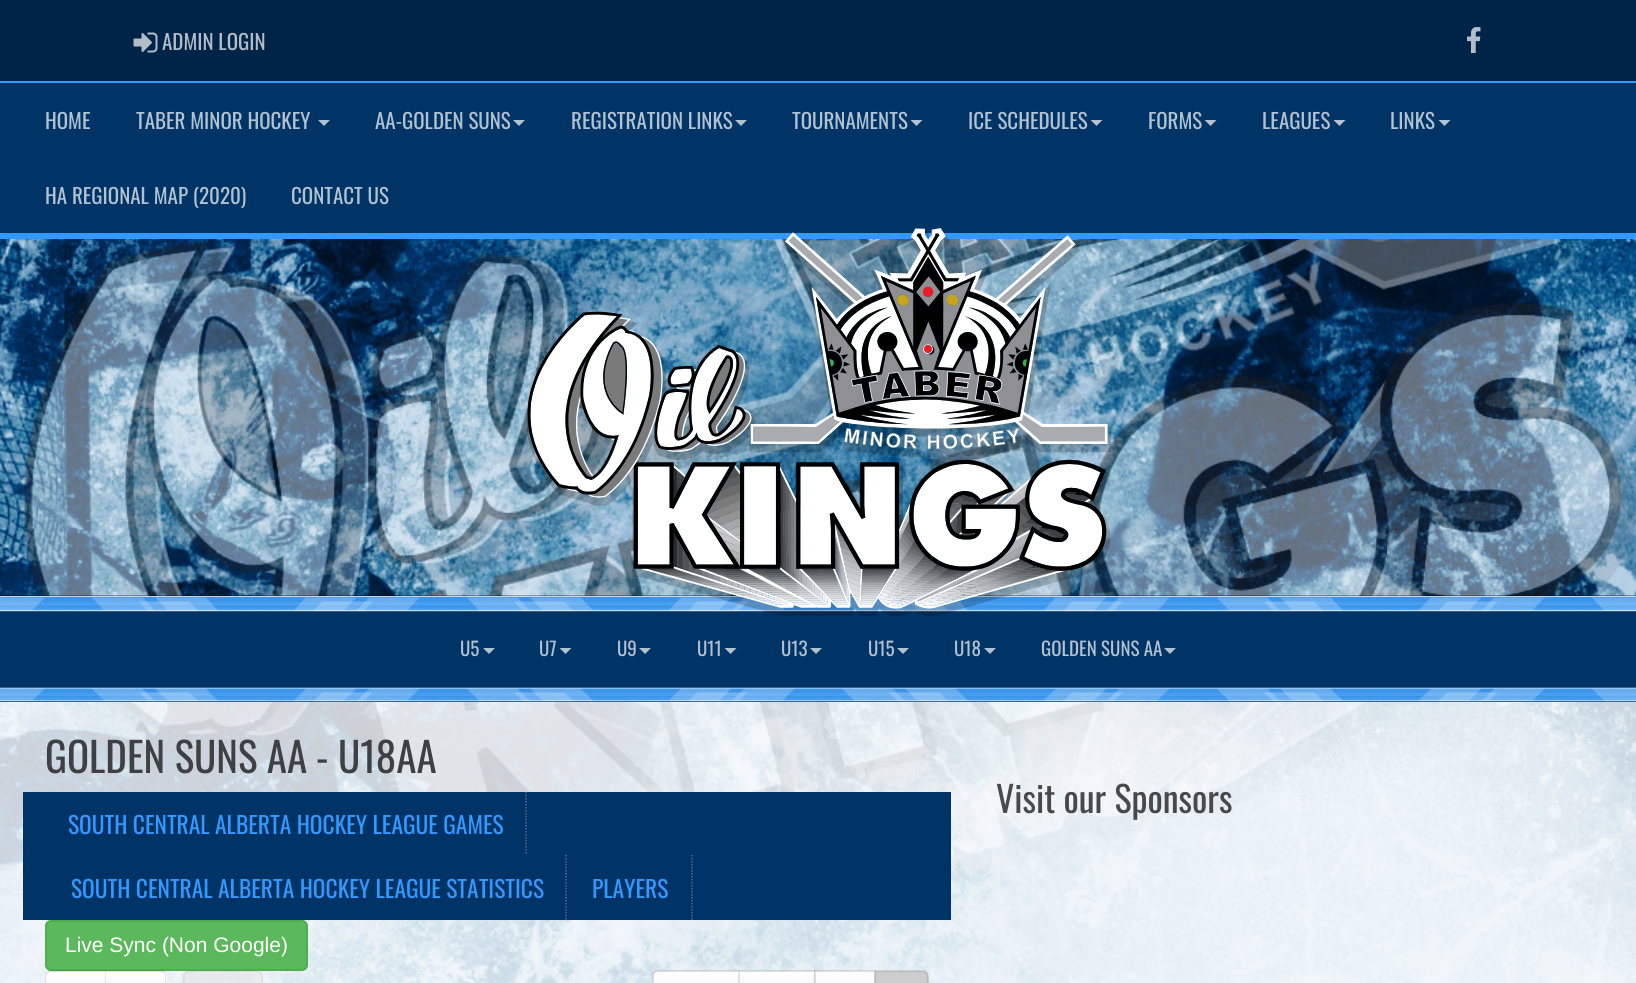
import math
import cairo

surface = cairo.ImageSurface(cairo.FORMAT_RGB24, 1636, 983)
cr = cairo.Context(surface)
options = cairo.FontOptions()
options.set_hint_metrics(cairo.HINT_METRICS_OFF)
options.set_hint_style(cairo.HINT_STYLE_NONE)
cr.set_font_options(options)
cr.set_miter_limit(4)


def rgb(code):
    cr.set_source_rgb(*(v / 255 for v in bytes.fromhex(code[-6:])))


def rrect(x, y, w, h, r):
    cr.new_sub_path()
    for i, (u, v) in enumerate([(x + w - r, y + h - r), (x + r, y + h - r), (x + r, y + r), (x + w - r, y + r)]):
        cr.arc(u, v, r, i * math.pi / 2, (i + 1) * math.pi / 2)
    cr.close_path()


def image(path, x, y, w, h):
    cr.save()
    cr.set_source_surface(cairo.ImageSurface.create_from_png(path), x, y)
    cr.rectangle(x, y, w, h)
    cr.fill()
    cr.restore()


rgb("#ffffff")
cr.paint()
rgb("#3399ff")
cr.rectangle(0, 81, 1636, 2)
cr.fill()
rgb("#002447")
cr.rectangle(0, 0, 1636, 81)
cr.fill()
image("img/1.png", 133, 32, 25, 21)
image("img/2.png", 1467, 27, 14, 26)
rgb("#003366")
cr.rectangle(0, 83, 1636, 150)
cr.fill()
rgb("#3399ff")
cr.rectangle(0, 233, 1636, 6)
cr.fill()
rgb("#b3c2d1")
cr.new_path()
cr.move_to(318, 120)
cr.line_to(330, 120)
cr.line_to(324, 126)
cr.close_path()
cr.fill()
cr.new_path()
cr.move_to(513, 120)
cr.line_to(525, 120)
cr.line_to(519, 126)
cr.close_path()
cr.fill()
cr.new_path()
cr.move_to(735, 120)
cr.line_to(747, 120)
cr.line_to(741, 126)
cr.close_path()
cr.fill()
cr.new_path()
cr.move_to(910.5, 120)
cr.line_to(922.5, 120)
cr.line_to(916.5, 126)
cr.close_path()
cr.fill()
cr.new_path()
cr.move_to(1090.5, 120)
cr.line_to(1102.5, 120)
cr.line_to(1096.5, 126)
cr.close_path()
cr.fill()
cr.new_path()
cr.move_to(1204.5, 120)
cr.line_to(1216.5, 120)
cr.line_to(1210.5, 126)
cr.close_path()
cr.fill()
cr.new_path()
cr.move_to(1333.5, 120)
cr.line_to(1345.5, 120)
cr.line_to(1339.5, 126)
cr.close_path()
cr.fill()
cr.new_path()
cr.move_to(1438.5, 120)
cr.line_to(1450.5, 120)
cr.line_to(1444.5, 126)
cr.close_path()
cr.fill()
image("img/4.png", 0, 239, 1636, 744)
rgb("#3399ff")
cr.rectangle(0, 596, 1636, 16)
cr.fill()
image("img/5.png", 0, 595, 1636, 17)
rgb("#003366")
cr.rectangle(0, 612, 1636, 75)
cr.fill()
image("img/3.png", 527, 228, 585, 389)
rgb("#b3c2d1")
cr.new_path()
cr.move_to(483, 648)
cr.line_to(495, 648)
cr.line_to(489, 654)
cr.close_path()
cr.fill()
cr.new_path()
cr.move_to(559.5, 648)
cr.line_to(571.5, 648)
cr.line_to(565.5, 654)
cr.close_path()
cr.fill()
cr.new_path()
cr.move_to(639, 648)
cr.line_to(651, 648)
cr.line_to(645, 654)
cr.close_path()
cr.fill()
cr.new_path()
cr.move_to(724.5, 648)
cr.line_to(736.5, 648)
cr.line_to(730.5, 654)
cr.close_path()
cr.fill()
cr.new_path()
cr.move_to(810, 648)
cr.line_to(822, 648)
cr.line_to(816, 654)
cr.close_path()
cr.fill()
cr.new_path()
cr.move_to(897, 648)
cr.line_to(909, 648)
cr.line_to(903, 654)
cr.close_path()
cr.fill()
cr.new_path()
cr.move_to(984, 648)
cr.line_to(996, 648)
cr.line_to(990, 654)
cr.close_path()
cr.fill()
cr.new_path()
cr.move_to(1164, 648)
cr.line_to(1176, 648)
cr.line_to(1170, 654)
cr.close_path()
cr.fill()
rgb("#3399ff")
cr.rectangle(0, 687, 1636, 15)
cr.fill()
image("img/6.png", 0, 687, 1636, 15)
cr.set_source_rgba(1, 1, 1, 0.8)
cr.rectangle(0, 702, 1636, 281)
cr.fill()
rgb("#003366")
cr.rectangle(23, 792, 928, 128)
cr.fill()
cr.new_path()
cr.move_to(526, 792)
cr.line_to(526, 855)
rgb("#4d7094")
cr.set_line_width(1.5)
cr.set_dash([1.5, 1.5])
cr.stroke()
cr.new_path()
cr.move_to(566, 855)
cr.line_to(566, 919.5)
cr.stroke()
cr.new_path()
cr.move_to(692, 855)
cr.line_to(692, 919.5)
cr.stroke()
rgb("#5cb85c")
rrect(46, 921, 261, 49, 5)
cr.fill_preserve()
rgb("#4cae4c")
cr.set_line_width(2)
cr.set_dash([])
cr.stroke()
rgb("#f5f5f5")
cr.new_path()
cr.move_to(51, 971)
cr.line_to(107, 971)
cr.line_to(107, 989)
cr.line_to(51, 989)
cr.curve_to(47.5, 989, 45, 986.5, 45, 983)
cr.line_to(45, 977)
cr.curve_to(45, 973.5, 47.5, 971, 51, 971)
cr.close_path()
cr.fill()
cr.save()
cr.new_path()
cr.move_to(51, 971)
cr.line_to(107, 971)
cr.line_to(107, 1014)
cr.line_to(51, 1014)
cr.curve_to(47.5, 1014, 45, 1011.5, 45, 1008)
cr.line_to(45, 977)
cr.curve_to(45, 973.5, 47.5, 971, 51, 971)
cr.close_path()
cr.clip()
gradient = cairo.LinearGradient(76, 972, 76, 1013)
gradient.add_color_stop_rgba(0, 1, 1, 1, 1)
gradient.add_color_stop_rgba(1, 0.902, 0.902, 0.902, 1)
cr.set_source(gradient)
cr.rectangle(45, 972, 60, 11)
cr.fill()
cr.restore()
cr.set_source_rgba(0, 0, 0, 0.1)
cr.new_path()
cr.move_to(51, 972)
cr.line_to(48, 973)
cr.line_to(47, 972)
cr.line_to(49, 970)
cr.line_to(106, 970)
cr.line_to(105, 972)
cr.close_path()
cr.fill()
cr.new_path()
cr.move_to(45, 976)
cr.line_to(45, 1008)
cr.curve_to(45, 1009.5, 46, 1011, 47, 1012)
cr.line_to(48, 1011)
cr.curve_to(47, 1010, 46, 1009, 46, 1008)
cr.line_to(46, 976)
cr.curve_to(46, 975, 47, 974, 48, 973)
cr.line_to(46.5, 972)
cr.curve_to(45.5, 973, 45, 974.5, 45, 976)
cr.close_path()
cr.fill()
rgb("#f5f5f5")
cr.new_path()
cr.move_to(105, 971)
cr.line_to(161, 971)
cr.curve_to(164.5, 971, 167, 973.5, 167, 977)
cr.line_to(167, 983)
cr.curve_to(167, 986.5, 164.5, 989, 161, 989)
cr.line_to(105, 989)
cr.close_path()
cr.fill()
cr.save()
cr.new_path()
cr.move_to(105, 971)
cr.line_to(161, 971)
cr.curve_to(164.5, 971, 167, 973.5, 167, 977)
cr.line_to(167, 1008)
cr.curve_to(167, 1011.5, 164.5, 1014, 161, 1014)
cr.line_to(105, 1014)
cr.close_path()
cr.clip()
gradient = cairo.LinearGradient(136, 972, 136, 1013)
gradient.add_color_stop_rgba(0, 1, 1, 1, 1)
gradient.add_color_stop_rgba(1, 0.902, 0.902, 0.902, 1)
cr.set_source(gradient)
cr.rectangle(105, 972, 62, 11)
cr.fill()
cr.restore()
cr.set_source_rgba(0, 0, 0, 0.1)
cr.new_path()
cr.move_to(105, 970)
cr.line_to(163, 970)
cr.line_to(165, 972)
cr.line_to(164, 973)
cr.curve_to(163, 973, 162, 972, 160, 972)
cr.line_to(106, 972)
cr.close_path()
cr.fill()
cr.new_path()
cr.move_to(165, 972)
cr.curve_to(165.5, 973.5, 166, 974.5, 166, 976)
cr.line_to(166, 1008)
cr.curve_to(166, 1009.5, 165.5, 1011, 164.5, 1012)
cr.line_to(163.5, 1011)
cr.curve_to(164.5, 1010, 165, 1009, 165, 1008)
cr.line_to(165, 976)
cr.curve_to(165, 975, 164.5, 974, 163.5, 973.5)
cr.close_path()
cr.move_to(106, 972)
cr.line_to(105, 970)
cr.line_to(105, 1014)
cr.line_to(107, 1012)
cr.line_to(106, 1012)
cr.close_path()
cr.fill()
cr.set_source_rgba(0.902, 0.902, 0.902, 0.65)
rrect(183, 971, 80, 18, 6)
cr.fill()
cr.new_path()
cr.move_to(185.5, 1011.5)
cr.curve_to(183, 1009.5, 184, 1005.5, 184, 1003)
cr.line_to(184, 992)
cr.curve_to(184, 971, 180, 971, 200, 971)
cr.line_to(245, 971)
cr.curve_to(265.5, 971, 262, 971, 262, 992)
cr.line_to(262, 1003)
cr.curve_to(262, 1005.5, 262.5, 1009.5, 260, 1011.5)
cr.set_source_rgba(0, 0, 0, 0.07)
cr.set_line_width(1.5)
cr.stroke()
rgb("#f5f5f5")
cr.new_path()
cr.move_to(659, 971)
cr.line_to(740, 971)
cr.line_to(740, 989)
cr.line_to(659, 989)
cr.curve_to(655.5, 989, 653, 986.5, 653, 983)
cr.line_to(653, 977)
cr.curve_to(653, 973.5, 655.5, 971, 659, 971)
cr.close_path()
cr.fill()
cr.save()
cr.new_path()
cr.move_to(659, 971)
cr.line_to(740, 971)
cr.line_to(740, 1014)
cr.line_to(659, 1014)
cr.curve_to(655.5, 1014, 653, 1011.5, 653, 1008)
cr.line_to(653, 977)
cr.curve_to(653, 973.5, 655.5, 971, 659, 971)
cr.close_path()
cr.clip()
gradient = cairo.LinearGradient(696, 972, 696, 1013)
gradient.add_color_stop_rgba(0, 1, 1, 1, 1)
gradient.add_color_stop_rgba(1, 0.902, 0.902, 0.902, 1)
cr.set_source(gradient)
cr.rectangle(653, 972, 85, 11)
cr.fill()
cr.restore()
cr.set_source_rgba(0, 0, 0, 0.1)
cr.new_path()
cr.move_to(658, 972)
cr.line_to(655, 973)
cr.line_to(654, 972)
cr.line_to(656, 970)
cr.line_to(740, 970)
cr.line_to(738, 972)
cr.close_path()
cr.fill()
cr.new_path()
cr.move_to(740, 970)
cr.line_to(738, 972)
cr.line_to(738, 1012)
cr.line_to(740, 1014)
cr.close_path()
cr.fill()
cr.new_path()
cr.move_to(652, 974)
cr.line_to(654, 972)
cr.line_to(655, 973)
cr.curve_to(654, 974, 654, 975, 654, 976)
cr.line_to(654, 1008)
cr.curve_to(654, 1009, 655, 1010, 656, 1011)
cr.line_to(654, 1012)
cr.line_to(652, 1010)
cr.close_path()
cr.fill()
rgb("#f5f5f5")
cr.rectangle(738, 971, 77, 1)
cr.fill()
gradient = cairo.LinearGradient(777, 972, 777, 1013)
gradient.add_color_stop_rgba(0, 1, 1, 1, 1)
gradient.add_color_stop_rgba(1, 0.902, 0.902, 0.902, 1)
cr.set_source(gradient)
cr.rectangle(738, 972, 77, 11)
cr.fill()
cr.set_source_rgba(0, 0, 0, 0.1)
cr.new_path()
cr.move_to(738, 970)
cr.line_to(816, 970)
cr.line_to(814, 972)
cr.line_to(740, 972)
cr.close_path()
cr.fill()
cr.new_path()
cr.move_to(816, 970)
cr.line_to(816, 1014)
cr.line_to(814, 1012)
cr.line_to(814, 972)
cr.close_path()
cr.fill()
cr.new_path()
cr.move_to(738, 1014)
cr.line_to(738, 970)
cr.line_to(740, 972)
cr.line_to(740, 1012)
cr.close_path()
cr.fill()
rgb("#f5f5f5")
cr.rectangle(815, 971, 60, 1)
cr.fill()
gradient = cairo.LinearGradient(845, 972, 845, 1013)
gradient.add_color_stop_rgba(0, 1, 1, 1, 1)
gradient.add_color_stop_rgba(1, 0.902, 0.902, 0.902, 1)
cr.set_source(gradient)
cr.rectangle(815, 972, 60, 11)
cr.fill()
cr.set_source_rgba(0, 0, 0, 0.1)
cr.new_path()
cr.move_to(814, 970)
cr.line_to(876, 970)
cr.line_to(874, 972)
cr.line_to(816, 972)
cr.close_path()
cr.fill()
cr.new_path()
cr.move_to(876, 970)
cr.line_to(876, 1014)
cr.line_to(874, 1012)
cr.line_to(874, 972)
cr.close_path()
cr.move_to(814, 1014)
cr.line_to(814, 970)
cr.line_to(816, 972)
cr.line_to(816, 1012)
cr.close_path()
cr.fill()
rgb("#cccccc")
cr.new_path()
cr.move_to(875, 971)
cr.line_to(923, 971)
cr.curve_to(926.5, 971, 929, 973.5, 929, 977)
cr.line_to(929, 983)
cr.curve_to(929, 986.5, 926.5, 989, 923, 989)
cr.line_to(875, 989)
cr.close_path()
cr.fill()
cr.set_source_rgba(0, 0, 0, 0.1)
cr.new_path()
cr.move_to(876, 972)
cr.line_to(874, 970)
cr.line_to(925, 970)
cr.line_to(927, 972)
cr.line_to(926, 973)
cr.curve_to(925, 973, 924, 972, 922, 972)
cr.close_path()
cr.fill()
cr.new_path()
cr.move_to(927, 972)
cr.curve_to(927.5, 973.5, 928, 974.5, 928, 976)
cr.line_to(928, 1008)
cr.curve_to(928, 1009.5, 927.5, 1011, 926.5, 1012)
cr.line_to(925.5, 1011)
cr.curve_to(926.5, 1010, 927, 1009, 927, 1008)
cr.line_to(927, 976)
cr.curve_to(927, 975, 926.5, 974, 925.5, 973.5)
cr.close_path()
cr.move_to(876, 972)
cr.line_to(874, 970)
cr.line_to(874, 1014)
cr.line_to(876, 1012)
cr.close_path()
cr.fill()
cr.select_font_face("Oswald")
cr.set_font_size(21)
rgb("#b3bdc8")
cr.move_to(162, 50)
cr.show_text("ADMIN LOGIN")
rgb("#b3c2d1")
for x, y, s in [
    (45, 129, "HOME"),
    (136, 129, "TABER MINOR HOCKEY"),
    (375, 129, "AA-GOLDEN SUNS"),
    (571, 129, "REGISTRATION LINKS"),
    (792, 129, "TOURNAMENTS"),
    (968, 129, "ICE SCHEDULES"),
    (1148, 129, "FORMS"),
    (1262, 129, "LEAGUES"),
    (1390, 129, "LINKS"),
    (45, 204, "HA REGIONAL MAP (2020)"),
    (291, 204, "CONTACT US"),
]:
    cr.move_to(x, y)
    cr.show_text(s)
cr.set_font_size(19)
for x, y, s in [
    (460, 656, "U5"),
    (539, 656, "U7"),
    (617, 656, "U9"),
    (697, 656, "U11"),
    (781, 656, "U13"),
    (868, 656, "U15"),
    (954, 656, "U18"),
    (1041, 656, "GOLDEN SUNS AA"),
]:
    cr.move_to(x, y)
    cr.show_text(s)
cr.set_font_size(41)
rgb("#3e4043")
for x, y, s in [
    (45, 773, "GOLDEN SUNS AA"),
    (316, 773, "-"),
    (338, 773, "U18AA"),
]:
    cr.move_to(x, y)
    cr.show_text(s)
cr.set_font_size(23.5)
rgb("#3399ff")
for x, y, s in [
    (68, 834, "SOUTH CENTRAL ALBERTA HOCKEY LEAGUE GAMES"),
    (71, 898, "SOUTH CENTRAL ALBERTA HOCKEY LEAGUE STATISTICS"),
    (592, 898, "PLAYERS"),
]:
    cr.move_to(x, y)
    cr.show_text(s)
cr.select_font_face("Liberation Sans")
cr.set_font_size(21)
rgb("#ffffff")
cr.move_to(65, 952)
cr.show_text("Live Sync (Non Google)")
cr.select_font_face("Oswald")
cr.set_font_size(36)
rgb("#47494a")
cr.move_to(996, 813)
cr.show_text("Visit our Sponsors")
surface.write_to_png("page.png")
